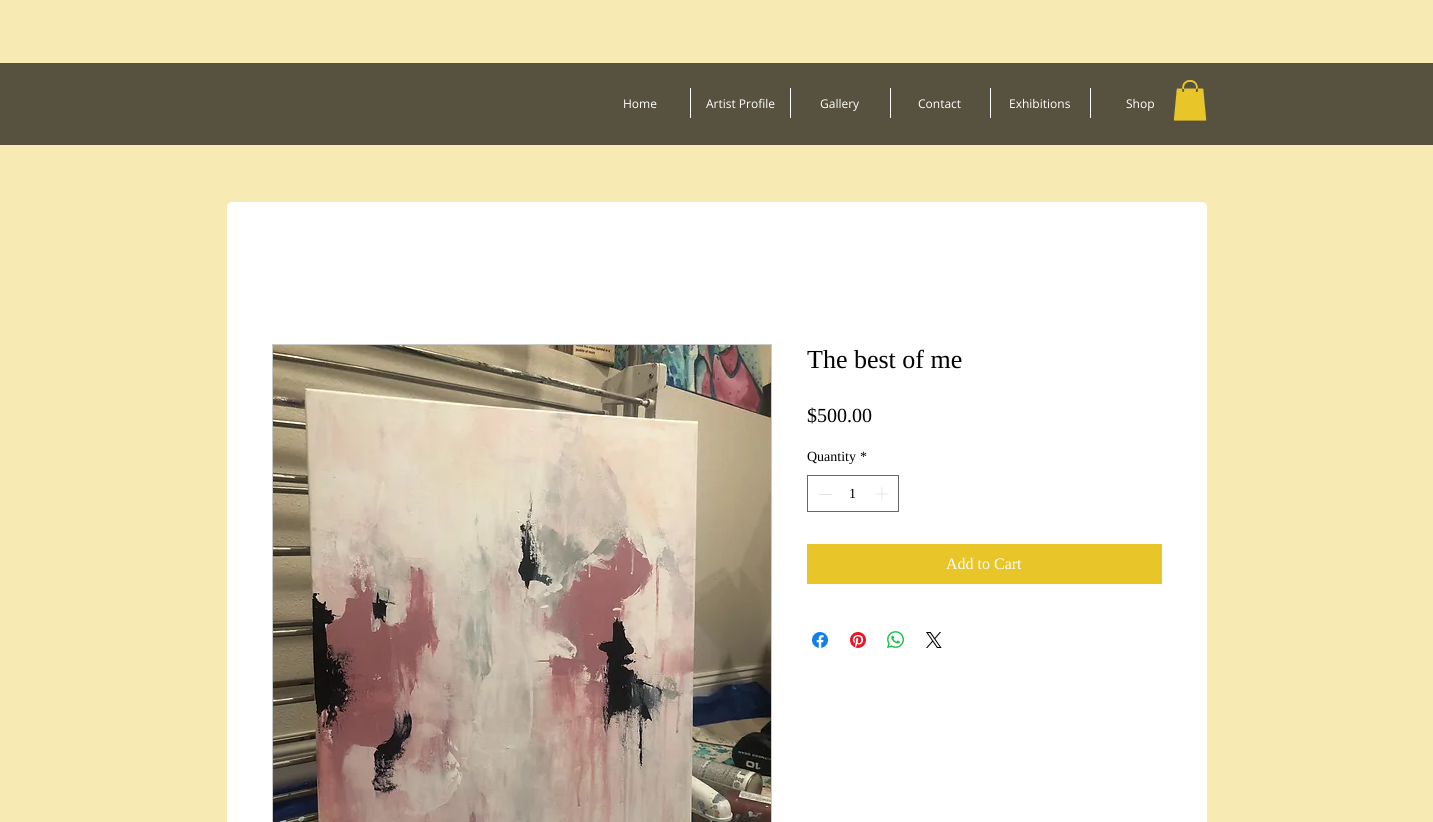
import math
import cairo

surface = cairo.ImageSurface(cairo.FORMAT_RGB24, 1433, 822)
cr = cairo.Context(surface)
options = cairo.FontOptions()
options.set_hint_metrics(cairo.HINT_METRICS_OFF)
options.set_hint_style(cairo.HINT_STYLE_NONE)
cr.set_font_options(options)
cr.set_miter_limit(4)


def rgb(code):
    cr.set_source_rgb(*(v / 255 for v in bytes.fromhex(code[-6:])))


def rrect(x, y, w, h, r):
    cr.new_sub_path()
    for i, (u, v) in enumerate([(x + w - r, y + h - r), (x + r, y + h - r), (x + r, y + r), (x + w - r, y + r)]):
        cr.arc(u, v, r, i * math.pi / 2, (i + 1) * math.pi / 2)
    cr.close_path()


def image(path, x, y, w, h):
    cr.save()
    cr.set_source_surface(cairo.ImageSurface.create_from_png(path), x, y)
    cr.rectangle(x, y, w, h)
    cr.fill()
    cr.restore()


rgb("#f7eab3")
cr.paint()
for x, y, w, h, color in [
    (0, 63, 1433, 82, "#57523f"),
    (690, 88, 1, 30, "#ffffff"),
    (790, 88, 1, 30, "#ffffff"),
    (890, 88, 1, 30, "#ffffff"),
    (990, 88, 1, 30, "#ffffff"),
    (1090, 88, 1, 30, "#ffffff"),
]:
    rgb(color)
    cr.rectangle(x, y, w, h)
    cr.fill()
image("img/1.png", 1173, 80, 34, 41)
rrect(227.5, 202.5, 979, 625, 4.5)
cr.fill_preserve()
cr.set_line_width(1)
cr.stroke()
cr.rectangle(272.5, 344.5, 499, 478)
rgb("#cacaca")
cr.stroke()
image("img/2.png", 273, 345, 498, 477)
cr.rectangle(807.5, 475.5, 91, 36)
rgb("#666666")
cr.stroke()
rgb("#e3e3e3")
cr.rectangle(819, 494, 13, 1)
cr.fill()
image("img/3.png", 875, 487, 14, 14)
rgb("#e8c529")
cr.rectangle(807, 544, 355, 40)
cr.fill()
image("img/4.png", 812, 632, 16, 16)
image("img/5.png", 850, 632, 16, 16)
image("img/6.png", 887, 631, 17, 17)
image("img/7.png", 926, 632, 16, 16)
cr.select_font_face("Open Sans")
cr.set_font_size(12)
rgb("#ffffff")
for x, y, s in [
    (623, 108, "Home"),
    (706, 108, "Artist Profile"),
    (820, 108, "Gallery"),
    (918, 108, "Contact"),
    (1009, 108, "Exhibitions"),
    (1126, 108, "Shop"),
]:
    cr.move_to(x, y)
    cr.show_text(s)
cr.select_font_face("Liberation Serif")
cr.set_font_size(26)
rgb("#000000")
cr.move_to(807, 368)
cr.show_text("The best of me")
cr.set_font_size(20)
cr.move_to(807, 422)
cr.show_text("$500.00")
cr.set_font_size(14)
for x, y, s in [
    (807, 461, "Quantity"),
    (860, 461, "*"),
    (849, 498, "1"),
]:
    cr.move_to(x, y)
    cr.show_text(s)
cr.set_font_size(16)
rgb("#ffffff")
cr.move_to(946, 569)
cr.show_text("Add to Cart")
surface.write_to_png("page.png")
